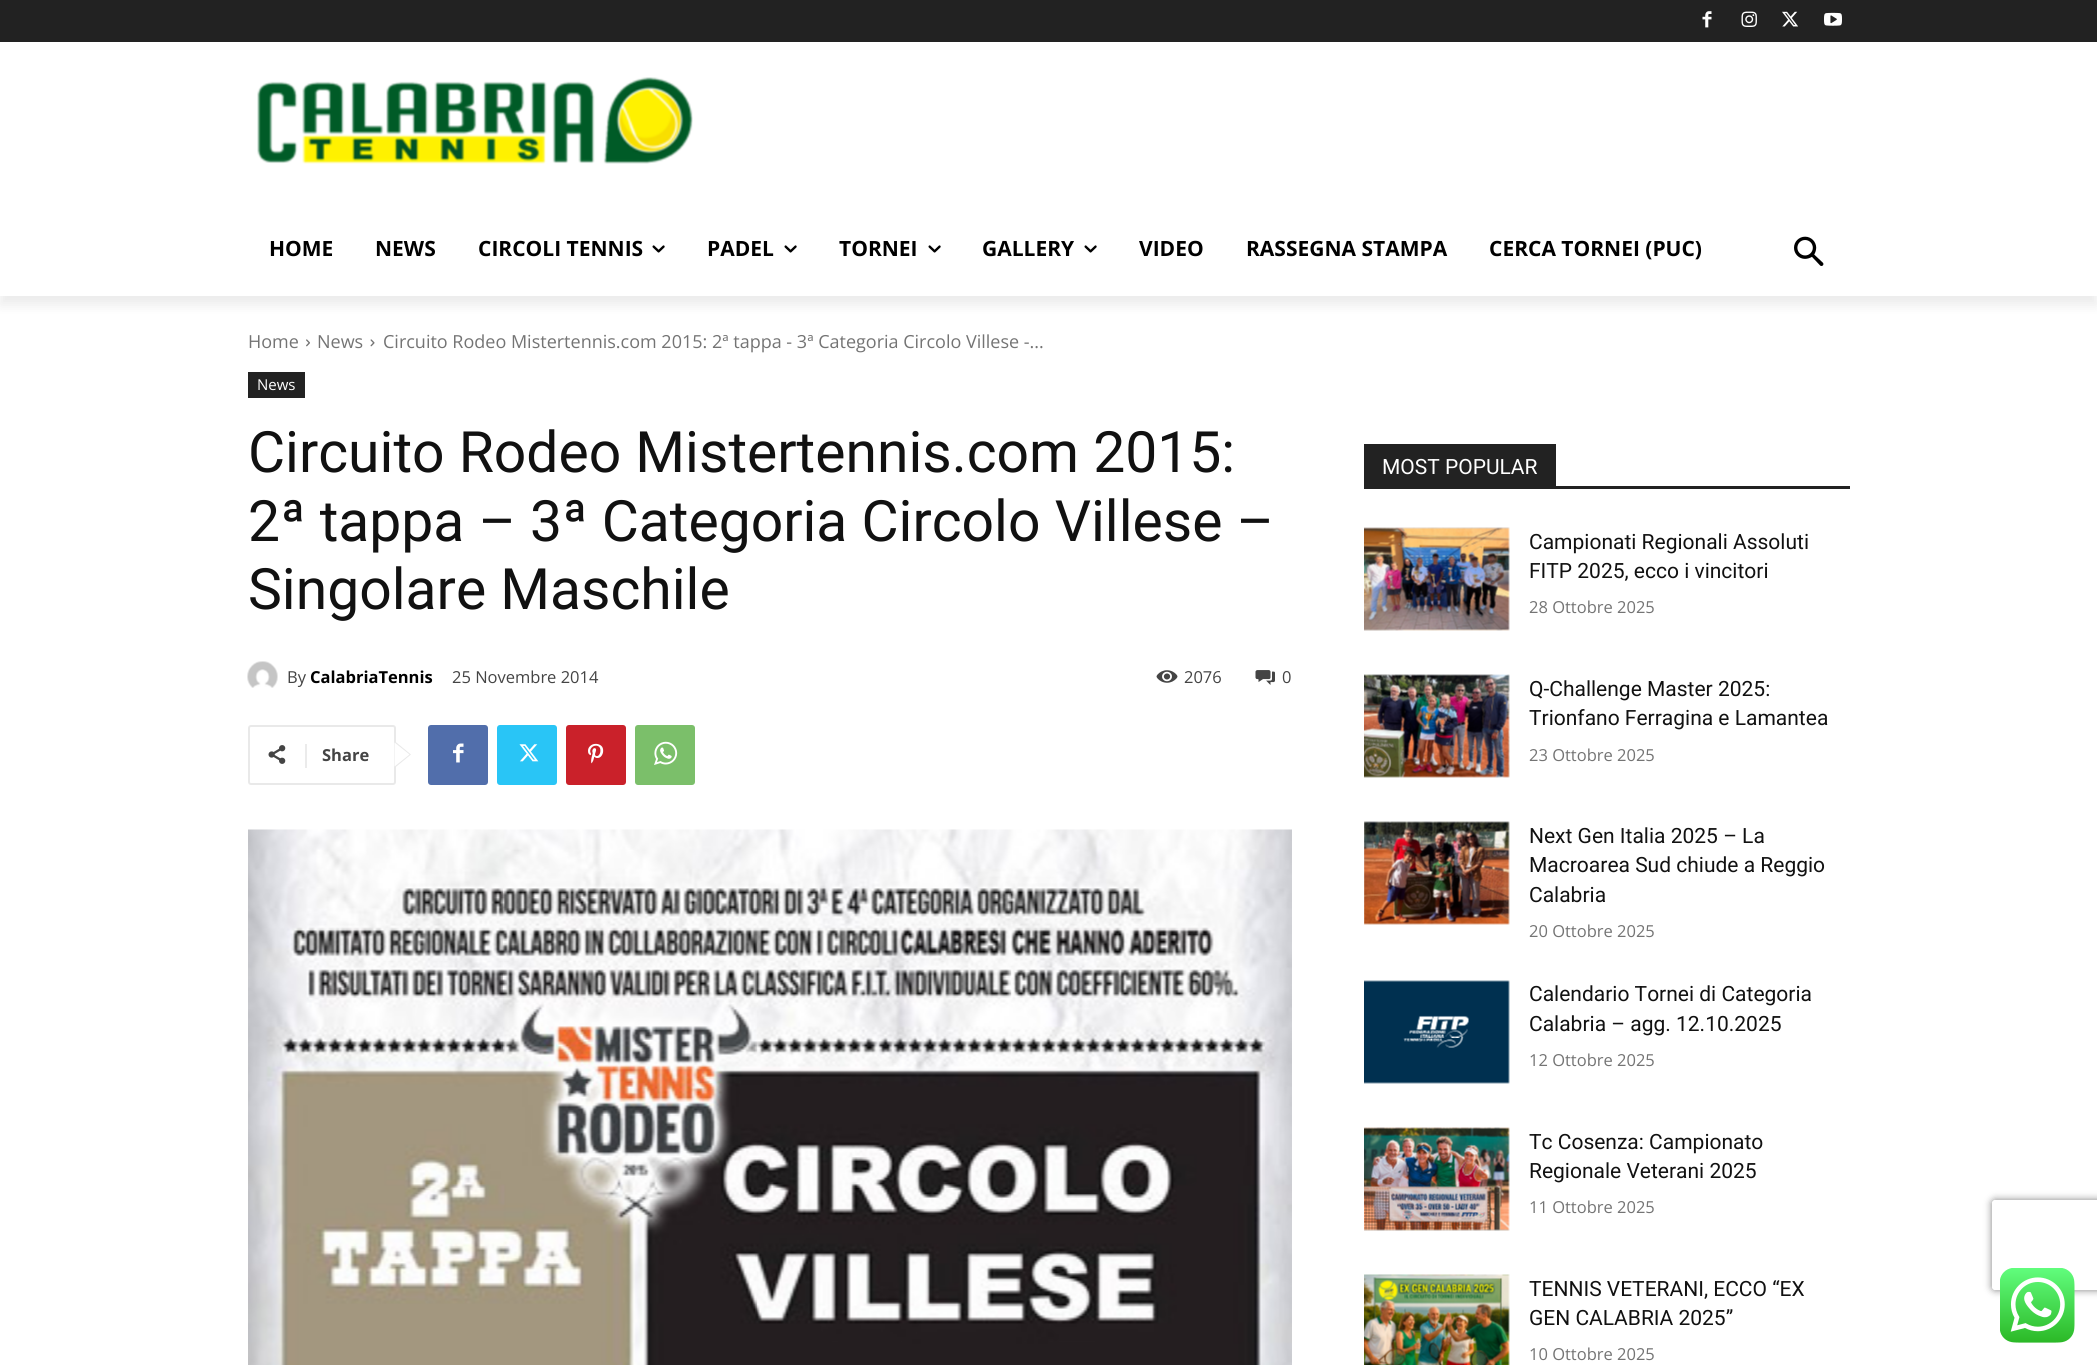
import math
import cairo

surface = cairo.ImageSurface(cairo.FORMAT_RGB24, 2097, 1365)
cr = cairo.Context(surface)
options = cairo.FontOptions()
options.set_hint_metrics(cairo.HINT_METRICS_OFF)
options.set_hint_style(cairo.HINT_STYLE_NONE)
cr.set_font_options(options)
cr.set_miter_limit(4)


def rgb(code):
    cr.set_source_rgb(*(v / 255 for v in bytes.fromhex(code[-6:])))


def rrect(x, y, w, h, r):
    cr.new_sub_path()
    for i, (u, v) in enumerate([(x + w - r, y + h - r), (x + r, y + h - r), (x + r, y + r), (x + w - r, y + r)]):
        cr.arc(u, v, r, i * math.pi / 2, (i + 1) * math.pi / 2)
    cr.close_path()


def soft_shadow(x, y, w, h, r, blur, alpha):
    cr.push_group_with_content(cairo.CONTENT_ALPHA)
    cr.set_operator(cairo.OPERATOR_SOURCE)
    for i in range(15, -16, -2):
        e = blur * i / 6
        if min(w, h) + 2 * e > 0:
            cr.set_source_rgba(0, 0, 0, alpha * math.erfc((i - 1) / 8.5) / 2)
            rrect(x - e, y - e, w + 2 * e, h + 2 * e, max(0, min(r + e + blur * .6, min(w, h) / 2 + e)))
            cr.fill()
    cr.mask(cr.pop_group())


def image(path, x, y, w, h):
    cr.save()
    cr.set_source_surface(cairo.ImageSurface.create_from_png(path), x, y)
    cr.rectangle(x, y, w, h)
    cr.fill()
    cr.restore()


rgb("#ffffff")
cr.paint()
rgb("#222222")
cr.rectangle(0, 0, 2097, 42)
cr.fill()
image("img/1.png", 1702, 11, 10, 17)
image("img/2.png", 1741, 11, 16, 16)
image("img/3.png", 1782, 11, 16, 16)
image("img/4.png", 1824, 12, 18, 14)
image("img/5.png", 257, 77, 436, 87)
image("img/7.png", 1794, 236, 30, 30)
cr.save()
cr.set_fill_rule(cairo.FILL_RULE_EVEN_ODD)
cr.new_path()
cr.move_to(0, 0)
cr.line_to(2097, 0)
cr.line_to(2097, 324)
cr.line_to(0, 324)
cr.close_path()
cr.move_to(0, 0)
cr.line_to(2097, 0)
cr.line_to(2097, 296)
cr.line_to(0, 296)
cr.close_path()
cr.clip()
rgb("#000000")
soft_shadow(0, 9, 2097, 296, 0, 6, 0.08)
cr.restore()
image("img/6.png", 652, 245, 13, 8)
image("img/6.png", 784, 245, 13, 8)
image("img/6.png", 928, 245, 13, 8)
image("img/6.png", 1084, 245, 13, 8)
image("img/8.png", 306, 339, 4, 8)
image("img/9.png", 370, 339, 5, 8)
cr.rectangle(248, 372, 57, 26)
cr.fill()
image("img/10.png", 247, 661, 31, 27)
image("img/11.png", 1156, 670, 22, 13)
image("img/12.png", 1255, 670, 20, 15)
rrect(249, 726, 146, 58, 2)
rgb("#e9e9e9")
cr.stroke()
cr.new_path()
cr.move_to(394.5, 768)
cr.line_to(394.5, 741)
cr.line_to(411, 754.5)
cr.close_path()
cr.fill()
image("img/13.png", 268, 745, 18, 19)
rgb("#ebebeb")
cr.rectangle(305, 744, 2, 24)
cr.fill()
rgb("#ffffff")
cr.new_path()
cr.move_to(394.5, 766.5)
cr.line_to(394.5, 742.5)
cr.line_to(409.5, 754.5)
cr.close_path()
cr.fill()
rgb("#516eab")
rrect(428, 725, 60, 60, 3)
cr.fill()
image("img/14.png", 453, 743, 11, 20)
rgb("#29c5f6")
rrect(497, 725, 60, 60, 3)
cr.fill()
image("img/15.png", 519, 744, 20, 18)
rgb("#ca212a")
rrect(566, 725, 60, 60, 3)
cr.fill()
image("img/16.png", 588, 743, 16, 21)
rgb("#7bbf6a")
rrect(635, 725, 60, 60, 3)
cr.fill()
image("img/17.png", 654, 741, 24, 24)
image("img/18.png", 248, 829, 1044, 536)
rgb("#222222")
cr.rectangle(1364, 486, 486, 3)
cr.fill()
cr.rectangle(1364, 444, 192, 42)
cr.fill()
image("img/19.png", 1364, 527, 146, 104)
image("img/20.png", 1364, 674, 146, 104)
image("img/21.png", 1364, 821, 146, 104)
image("img/22.png", 1364, 980, 146, 104)
image("img/23.png", 1364, 1127, 146, 104)
image("img/24.png", 1364, 1274, 146, 91)
cr.save()
cr.set_fill_rule(cairo.FILL_RULE_EVEN_ODD)
cr.new_path()
cr.move_to(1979, 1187)
cr.line_to(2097, 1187)
cr.line_to(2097, 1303)
cr.line_to(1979, 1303)
cr.close_path()
cr.move_to(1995, 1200)
cr.line_to(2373, 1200)
cr.curve_to(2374.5, 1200, 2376, 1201.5, 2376, 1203)
cr.line_to(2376, 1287)
cr.curve_to(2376, 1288.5, 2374.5, 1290, 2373, 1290)
cr.line_to(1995, 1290)
cr.curve_to(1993.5, 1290, 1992, 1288.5, 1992, 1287)
cr.line_to(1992, 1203)
cr.curve_to(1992, 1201.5, 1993.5, 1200, 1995, 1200)
cr.close_path()
cr.clip()
rgb("#808080")
soft_shadow(1992, 1200, 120, 90, 3, 4, 1)
cr.restore()
image("img/25.png", 2000, 1268, 75, 75)
cr.select_font_face("Open Sans", cairo.FONT_SLANT_NORMAL, cairo.FONT_WEIGHT_BOLD)
cr.set_font_size(21)
rgb("#000000")
for x, y, s in [
    (269, 256, "HOME"),
    (375, 256, "NEWS"),
    (478, 256, "CIRCOLI TENNIS"),
    (707, 256, "PADEL"),
    (839, 256, "TORNEI"),
    (982, 256, "GALLERY"),
    (1139, 256, "VIDEO"),
    (1246, 256, "RASSEGNA STAMPA"),
    (1489, 256, "CERCA TORNEI (PUC)"),
]:
    cr.move_to(x, y)
    cr.show_text(s)
cr.select_font_face("Open Sans")
cr.set_font_size(18)
rgb("#747474")
for x, y, s in [
    (248, 348, "Home"),
    (317, 348, "News"),
    (383, 348, "Circuito Rodeo Mistertennis.com 2015: 2ª tappa - 3ª Categoria Circolo Villese -..."),
]:
    cr.move_to(x, y)
    cr.show_text(s)
cr.set_font_size(15)
rgb("#ffffff")
cr.move_to(257, 390)
cr.show_text("News")
cr.select_font_face("Roboto")
cr.set_font_size(57)
rgb("#111111")
for x, y, s in [
    (248, 472, "Circuito Rodeo Mistertennis.com 2015:"),
    (248, 541, "2ª tappa – 3ª Categoria Circolo Villese –"),
    (248, 609, "Singolare Maschile"),
]:
    cr.move_to(x, y)
    cr.show_text(s)
cr.select_font_face("Open Sans")
cr.set_font_size(16.5)
rgb("#444444")
cr.move_to(287, 683)
cr.show_text("By")
cr.select_font_face("Open Sans", cairo.FONT_SLANT_NORMAL, cairo.FONT_WEIGHT_BOLD)
rgb("#000000")
cr.move_to(310, 683)
cr.show_text("CalabriaTennis")
cr.select_font_face("Open Sans")
rgb("#444444")
for x, y, s in [
    (452, 683, "25 Novembre 2014"),
    (1184, 683, "2076"),
    (1282, 683, "0"),
]:
    cr.move_to(x, y)
    cr.show_text(s)
cr.select_font_face("Open Sans", cairo.FONT_SLANT_NORMAL, cairo.FONT_WEIGHT_BOLD)
cr.move_to(322, 761)
cr.show_text("Share")
cr.select_font_face("Roboto")
cr.set_font_size(21)
rgb("#ffffff")
cr.move_to(1382, 474)
cr.show_text("MOST POPULAR")
rgb("#111111")
cr.move_to(1529, 549)
cr.show_text("Campionati Regionali Assoluti")
cr.move_to(1529, 578)
cr.show_text("FITP 2025, ecco i vincitori")
cr.select_font_face("Open Sans")
cr.set_font_size(16.5)
rgb("#747474")
cr.move_to(1529, 613)
cr.show_text("28 Ottobre 2025")
cr.select_font_face("Roboto")
cr.set_font_size(21)
rgb("#111111")
cr.move_to(1529, 696)
cr.show_text("Q-Challenge Master 2025:")
cr.move_to(1529, 725)
cr.show_text("Trionfano Ferragina e Lamantea")
cr.select_font_face("Open Sans")
cr.set_font_size(16.5)
rgb("#747474")
cr.move_to(1529, 761)
cr.show_text("23 Ottobre 2025")
cr.select_font_face("Roboto")
cr.set_font_size(21)
rgb("#111111")
for x, y, s in [
    (1529, 843, "Next Gen Italia 2025 – La"),
    (1529, 872, "Macroarea Sud chiude a Reggio"),
    (1529, 902, "Calabria"),
]:
    cr.move_to(x, y)
    cr.show_text(s)
cr.select_font_face("Open Sans")
cr.set_font_size(16.5)
rgb("#747474")
cr.move_to(1529, 937)
cr.show_text("20 Ottobre 2025")
cr.select_font_face("Roboto")
cr.set_font_size(21)
rgb("#111111")
cr.move_to(1529, 1001)
cr.show_text("Calendario Tornei di Categoria")
cr.move_to(1529, 1031)
cr.show_text("Calabria – agg. 12.10.2025")
cr.select_font_face("Open Sans")
cr.set_font_size(16.5)
rgb("#747474")
cr.move_to(1529, 1066)
cr.show_text("12 Ottobre 2025")
cr.select_font_face("Roboto")
cr.set_font_size(21)
rgb("#111111")
cr.move_to(1529, 1149)
cr.show_text("Tc Cosenza: Campionato")
cr.move_to(1529, 1178)
cr.show_text("Regionale Veterani 2025")
cr.select_font_face("Open Sans")
cr.set_font_size(16.5)
rgb("#747474")
cr.move_to(1529, 1213)
cr.show_text("11 Ottobre 2025")
cr.select_font_face("Roboto")
cr.set_font_size(21)
rgb("#111111")
cr.move_to(1529, 1296)
cr.show_text("TENNIS VETERANI, ECCO “EX")
cr.move_to(1529, 1325)
cr.show_text("GEN CALABRIA 2025”")
cr.select_font_face("Open Sans")
cr.set_font_size(16.5)
rgb("#747474")
cr.move_to(1529, 1360)
cr.show_text("10 Ottobre 2025")
surface.write_to_png("page.png")
